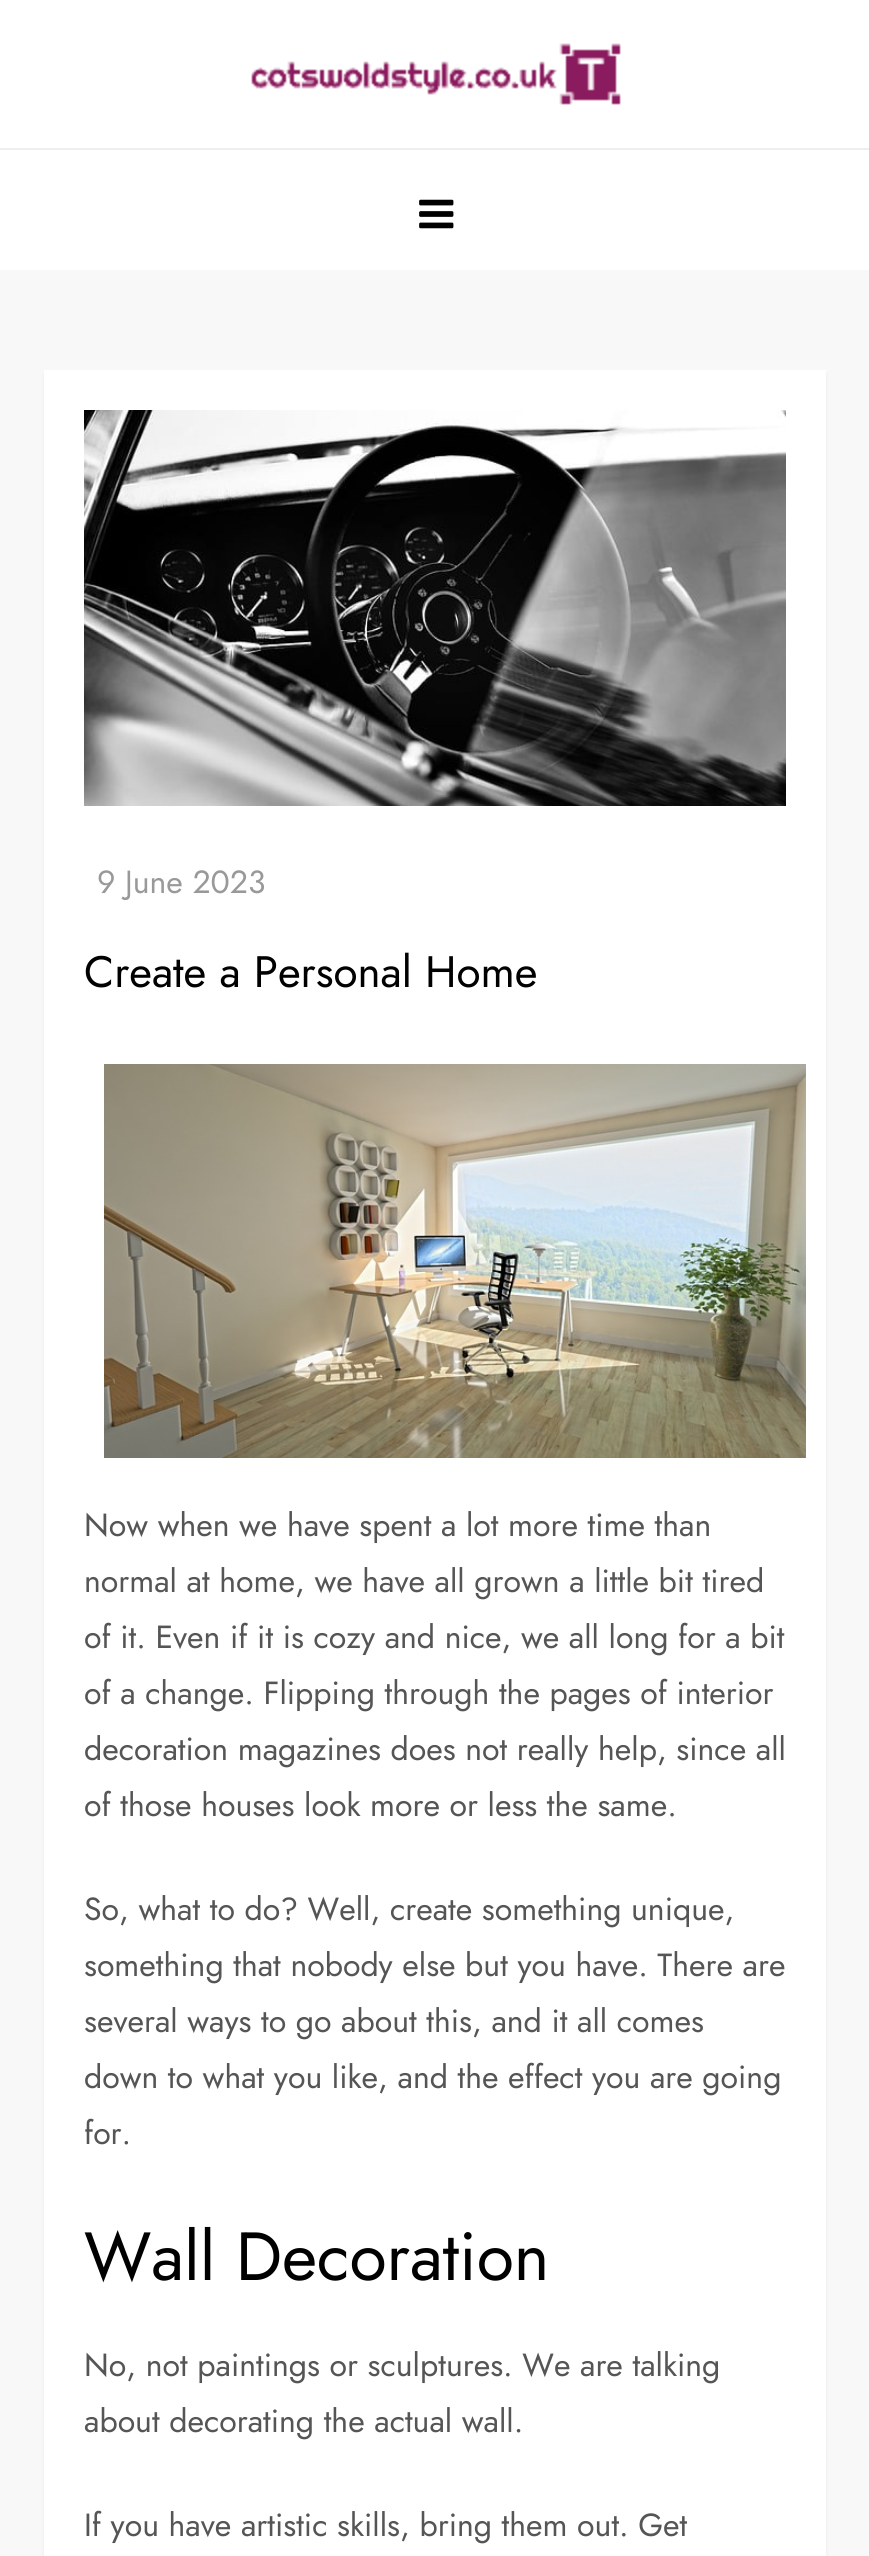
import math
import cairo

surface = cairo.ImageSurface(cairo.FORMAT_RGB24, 869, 2556)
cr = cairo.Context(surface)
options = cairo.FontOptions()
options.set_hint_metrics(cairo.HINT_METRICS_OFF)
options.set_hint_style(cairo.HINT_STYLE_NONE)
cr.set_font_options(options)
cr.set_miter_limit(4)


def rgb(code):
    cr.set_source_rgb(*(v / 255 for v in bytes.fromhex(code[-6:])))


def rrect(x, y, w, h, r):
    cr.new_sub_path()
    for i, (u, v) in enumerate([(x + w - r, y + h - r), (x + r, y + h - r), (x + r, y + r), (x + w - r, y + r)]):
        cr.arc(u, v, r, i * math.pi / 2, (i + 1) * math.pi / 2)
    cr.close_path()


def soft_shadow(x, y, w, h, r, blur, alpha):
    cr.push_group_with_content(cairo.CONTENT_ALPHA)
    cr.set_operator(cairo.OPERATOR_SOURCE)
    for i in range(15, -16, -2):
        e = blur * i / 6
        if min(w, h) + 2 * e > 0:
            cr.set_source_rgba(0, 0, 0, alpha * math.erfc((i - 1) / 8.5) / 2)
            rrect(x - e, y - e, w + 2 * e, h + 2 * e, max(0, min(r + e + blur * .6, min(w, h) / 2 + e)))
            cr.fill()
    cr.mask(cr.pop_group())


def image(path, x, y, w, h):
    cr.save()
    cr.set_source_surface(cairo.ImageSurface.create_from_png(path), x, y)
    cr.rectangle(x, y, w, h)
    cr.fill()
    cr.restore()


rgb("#f8f8f8")
cr.paint()
rgb("#ffffff")
cr.rectangle(0, 0, 869, 270)
cr.fill()
image("img/1.png", 251, 43, 370, 62)
rgb("#eeeeee")
cr.rectangle(0, 148, 869, 2)
cr.fill()
image("img/2.png", 419, 199, 35, 30)
rgb("#000000")
soft_shadow(44, 374, 782, 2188, 0, 2, 0.06)
rgb("#ffffff")
cr.rectangle(44, 370, 782, 2186)
cr.fill()
image("img/3.png", 84, 410, 702, 396)
image("img/4.png", 104, 1064, 702, 394)
cr.select_font_face("Jost")
cr.set_font_size(32)
rgb("#999999")
cr.move_to(97, 893)
cr.show_text("9 June 2023")
cr.set_font_size(44)
rgb("#000000")
cr.move_to(84, 987)
cr.show_text("Create a Personal Home")
cr.set_font_size(32)
rgb("#555555")
for x, y, s in [
    (84, 1536, "Now when we have spent a lot more time than"),
    (84, 1592, "normal at home, we have all grown a little bit tired"),
    (84, 1648, "of it. Even if it is cozy and nice, we all long for a bit"),
    (84, 1704, "of a change. Flipping through the pages of interior"),
    (84, 1760, "decoration magazines does not really help, since all"),
    (84, 1816, "of those houses look more or less the same."),
    (84, 1920, "So, what to do? Well, create something unique,"),
    (84, 1976, "something that nobody else but you have. There are"),
    (84, 2032, "several ways to go about this, and it all comes"),
    (84, 2088, "down to what you like, and the effect you are going"),
    (84, 2144, "for."),
]:
    cr.move_to(x, y)
    cr.show_text(s)
cr.set_font_size(68)
rgb("#000000")
cr.move_to(84, 2280)
cr.show_text("Wall Decoration")
cr.set_font_size(32)
rgb("#555555")
for x, y, s in [
    (84, 2376, "No, not paintings or sculptures. We are talking"),
    (84, 2432, "about decorating the actual wall."),
    (84, 2536, "If you have artistic skills, bring them out. Get"),
]:
    cr.move_to(x, y)
    cr.show_text(s)
surface.write_to_png("page.png")
